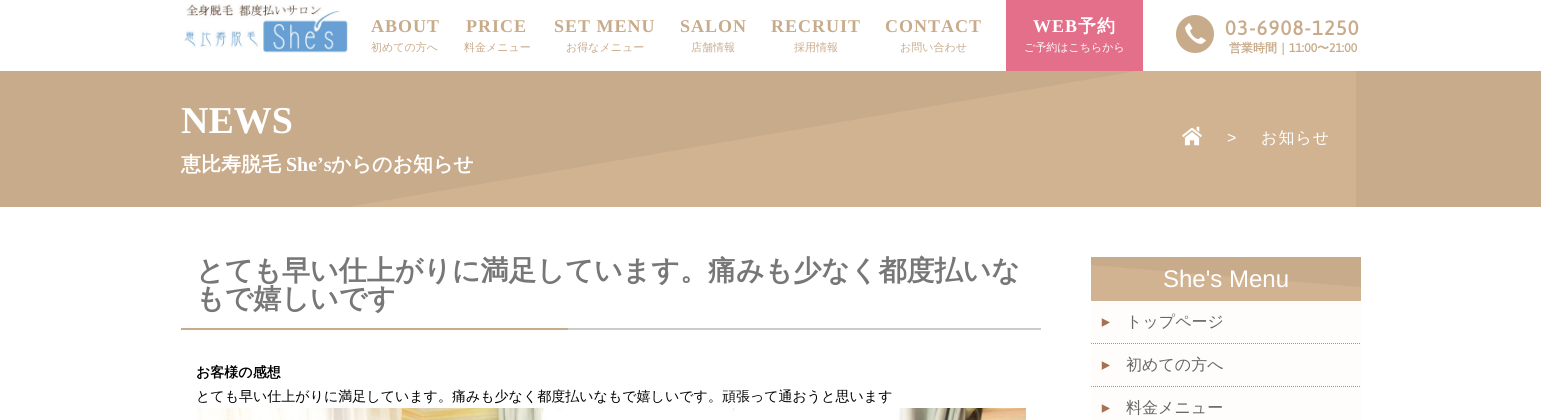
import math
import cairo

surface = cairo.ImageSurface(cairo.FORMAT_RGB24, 1541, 420)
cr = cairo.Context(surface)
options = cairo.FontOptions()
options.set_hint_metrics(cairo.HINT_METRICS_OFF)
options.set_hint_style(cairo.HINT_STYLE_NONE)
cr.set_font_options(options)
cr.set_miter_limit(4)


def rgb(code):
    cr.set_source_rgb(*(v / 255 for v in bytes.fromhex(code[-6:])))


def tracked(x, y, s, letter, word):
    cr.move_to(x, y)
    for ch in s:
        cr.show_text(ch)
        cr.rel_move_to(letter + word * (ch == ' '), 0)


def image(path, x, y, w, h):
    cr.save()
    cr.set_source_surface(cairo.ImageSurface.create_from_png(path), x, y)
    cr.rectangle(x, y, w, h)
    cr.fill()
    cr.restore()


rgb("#ffffff")
cr.paint()
image("img/1.png", 184, 4, 165, 49)
rgb("#e36f8a")
cr.rectangle(1006, 0, 137, 71)
cr.fill()
image("img/2.png", 1176, 15, 38, 38)
rgb("#c8ab8a")
cr.rectangle(0, 71, 1541, 136)
cr.fill()
image("img/3.png", 350, 71, 1006, 136)
image("img/4.png", 1182, 126, 20, 20)
rgb("#cccccc")
cr.rectangle(568, 328, 473, 2)
cr.fill()
rgb("#c8ab8a")
cr.rectangle(181, 328, 387, 2)
cr.fill()
image("img/5.png", 196, 408, 830, 12)
rgb("#fffdfb")
cr.rectangle(1091, 301, 270, 119)
cr.fill()
image("img/6.png", 1091, 257, 270, 44)
image("img/7.png", 1101, 318, 9, 9)
cr.new_path()
cr.move_to(1091, 343.5)
cr.line_to(1361, 343.5)
rgb("#999999")
cr.set_line_width(1)
cr.set_dash([1, 1])
cr.stroke()
image("img/7.png", 1101, 361, 9, 9)
cr.new_path()
cr.move_to(1091, 386.5)
cr.line_to(1361, 386.5)
cr.stroke()
image("img/7.png", 1101, 404, 9, 9)
cr.select_font_face("Liberation Serif", cairo.FONT_SLANT_NORMAL, cairo.FONT_WEIGHT_BOLD)
cr.set_font_size(18)
rgb("#c8ab8a")
tracked(371, 32, "ABOUT", 1, 0)
cr.select_font_face("WenQuanYi Zen Hei Medium")
cr.set_font_size(11)
cr.move_to(371, 51)
cr.show_text("初めての方へ")
cr.select_font_face("Liberation Serif", cairo.FONT_SLANT_NORMAL, cairo.FONT_WEIGHT_BOLD)
cr.set_font_size(18)
tracked(466, 32, "PRICE", 1, 0)
cr.select_font_face("WenQuanYi Zen Hei Medium")
cr.set_font_size(11)
cr.move_to(464, 51)
cr.show_text("料金メニュー")
cr.select_font_face("Liberation Serif", cairo.FONT_SLANT_NORMAL, cairo.FONT_WEIGHT_BOLD)
cr.set_font_size(18)
tracked(554, 32, "SET MENU", 1, 0)
cr.select_font_face("WenQuanYi Zen Hei Medium")
cr.set_font_size(11)
cr.move_to(566, 51)
cr.show_text("お得なメニュー")
cr.select_font_face("Liberation Serif", cairo.FONT_SLANT_NORMAL, cairo.FONT_WEIGHT_BOLD)
cr.set_font_size(18)
tracked(680, 32, "SALON", 1, 0)
cr.select_font_face("WenQuanYi Zen Hei Medium")
cr.set_font_size(11)
cr.move_to(691, 51)
cr.show_text("店舗情報")
cr.select_font_face("Liberation Serif", cairo.FONT_SLANT_NORMAL, cairo.FONT_WEIGHT_BOLD)
cr.set_font_size(18)
tracked(771, 32, "RECRUIT", 1, 0)
cr.select_font_face("WenQuanYi Zen Hei Medium")
cr.set_font_size(11)
cr.move_to(794, 51)
cr.show_text("採用情報")
cr.select_font_face("Liberation Serif", cairo.FONT_SLANT_NORMAL, cairo.FONT_WEIGHT_BOLD)
cr.set_font_size(18)
tracked(885, 32, "CONTACT", 1, 0)
cr.select_font_face("WenQuanYi Zen Hei Medium")
cr.set_font_size(11)
cr.move_to(900, 51)
cr.show_text("お問い合わせ")
cr.select_font_face("Liberation Serif", cairo.FONT_SLANT_NORMAL, cairo.FONT_WEIGHT_BOLD)
cr.set_font_size(18)
rgb("#ffffff")
tracked(1033, 32, "WEB", 1, 0)
cr.select_font_face("WenQuanYi Zen Hei", cairo.FONT_SLANT_NORMAL, cairo.FONT_WEIGHT_BOLD)
tracked(1078, 32, "予約", 1, 0)
cr.select_font_face("WenQuanYi Zen Hei Medium")
cr.set_font_size(11)
cr.move_to(1024, 51)
cr.show_text("ご予約はこちらから")
cr.select_font_face("Asap", cairo.FONT_SLANT_NORMAL, cairo.FONT_WEIGHT_BOLD)
cr.set_font_size(20)
rgb("#c8ab8a")
tracked(1225, 35, "03-6908-1250", 1.25, 0)
cr.select_font_face("WenQuanYi Zen Hei", cairo.FONT_SLANT_NORMAL, cairo.FONT_WEIGHT_BOLD)
cr.set_font_size(12)
cr.move_to(1229, 52)
cr.show_text("営業時間｜")
cr.select_font_face("Asap", cairo.FONT_SLANT_NORMAL, cairo.FONT_WEIGHT_BOLD)
cr.move_to(1289, 52)
cr.show_text("11:00")
cr.select_font_face("WenQuanYi Zen Hei", cairo.FONT_SLANT_NORMAL, cairo.FONT_WEIGHT_BOLD)
cr.move_to(1317, 52)
cr.show_text("〜")
cr.select_font_face("Asap", cairo.FONT_SLANT_NORMAL, cairo.FONT_WEIGHT_BOLD)
cr.move_to(1329, 52)
cr.show_text("21:00")
cr.select_font_face("Liberation Serif", cairo.FONT_SLANT_NORMAL, cairo.FONT_WEIGHT_BOLD)
cr.set_font_size(38)
rgb("#ffffff")
cr.move_to(181, 133)
cr.show_text("NEWS")
cr.select_font_face("WenQuanYi Zen Hei", cairo.FONT_SLANT_NORMAL, cairo.FONT_WEIGHT_BOLD)
cr.set_font_size(20)
cr.move_to(181, 171)
cr.show_text("恵比寿脱毛")
cr.select_font_face("Liberation Serif", cairo.FONT_SLANT_NORMAL, cairo.FONT_WEIGHT_BOLD)
cr.move_to(286, 171)
cr.show_text("She’s")
cr.select_font_face("WenQuanYi Zen Hei", cairo.FONT_SLANT_NORMAL, cairo.FONT_WEIGHT_BOLD)
cr.move_to(331, 171)
cr.show_text("からのお知らせ")
cr.select_font_face("Liberation Sans")
cr.set_font_size(16)
tracked(1227, 143, ">", 1, 0)
cr.select_font_face("WenQuanYi Zen Hei Medium")
tracked(1261, 143, "お知らせ", 1, 0)
cr.select_font_face("WenQuanYi Zen Hei", cairo.FONT_SLANT_NORMAL, cairo.FONT_WEIGHT_BOLD)
cr.set_font_size(28)
rgb("#777777")
cr.move_to(196, 280)
cr.show_text("とても早い仕上がりに満足しています。痛みも少なく都度払いな")
cr.move_to(196, 308)
cr.show_text("もで嬉しいです")
cr.set_font_size(14)
rgb("#000000")
cr.move_to(196, 377)
cr.show_text("お客様の感想")
cr.select_font_face("WenQuanYi Zen Hei Medium")
cr.move_to(196, 401)
cr.show_text("とても早い仕上がりに満足しています。痛みも少なく都度払いなもで嬉しいです。頑張って通おうと思います")
cr.select_font_face("Liberation Sans")
cr.set_font_size(24)
rgb("#ffffff")
cr.move_to(1163, 287)
cr.show_text("She's Menu")
cr.select_font_face("WenQuanYi Zen Hei Medium")
cr.set_font_size(16)
rgb("#666666")
for x, y, s in [
    (1126, 327, "トップページ"),
    (1126, 370, "初めての方へ"),
    (1126, 413, "料金メニュー"),
]:
    cr.move_to(x, y)
    cr.show_text(s)
surface.write_to_png("page.png")
